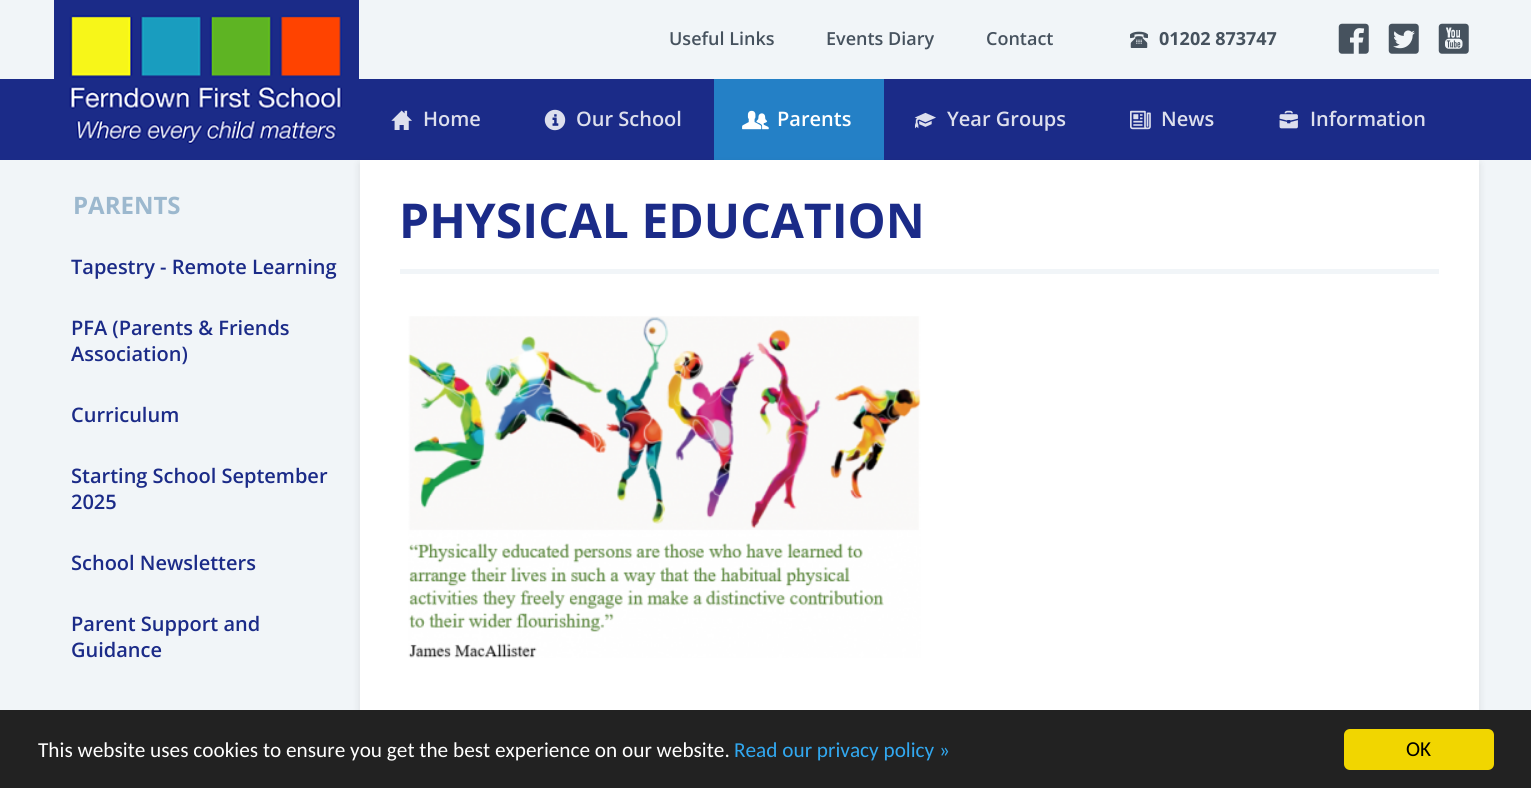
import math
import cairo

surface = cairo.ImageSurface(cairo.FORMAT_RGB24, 1531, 788)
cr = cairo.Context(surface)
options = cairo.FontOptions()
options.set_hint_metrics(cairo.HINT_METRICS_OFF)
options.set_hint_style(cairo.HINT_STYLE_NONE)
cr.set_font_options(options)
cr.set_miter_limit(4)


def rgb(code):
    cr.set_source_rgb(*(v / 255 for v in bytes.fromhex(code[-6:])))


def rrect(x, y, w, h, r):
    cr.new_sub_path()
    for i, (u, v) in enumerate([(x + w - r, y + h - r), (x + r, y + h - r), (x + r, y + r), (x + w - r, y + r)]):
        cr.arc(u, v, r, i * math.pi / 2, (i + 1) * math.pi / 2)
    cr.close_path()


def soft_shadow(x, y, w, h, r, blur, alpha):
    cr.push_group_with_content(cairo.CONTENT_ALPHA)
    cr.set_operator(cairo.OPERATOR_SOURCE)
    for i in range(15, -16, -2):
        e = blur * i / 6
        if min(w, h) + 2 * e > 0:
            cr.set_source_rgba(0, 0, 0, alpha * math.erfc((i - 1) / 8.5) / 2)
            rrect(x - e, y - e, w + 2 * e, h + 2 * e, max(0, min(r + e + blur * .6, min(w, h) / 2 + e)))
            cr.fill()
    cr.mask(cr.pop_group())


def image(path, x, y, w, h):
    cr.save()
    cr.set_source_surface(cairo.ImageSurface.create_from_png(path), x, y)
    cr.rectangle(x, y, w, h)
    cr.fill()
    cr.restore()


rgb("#f1f5f8")
cr.paint()
rgb("#1b2b88")
cr.rectangle(54, 0, 305, 79)
cr.fill()
cr.rectangle(0, 79, 1531, 81)
cr.fill()
image("img/1.png", 69, 15, 273, 129)
image("img/2.png", 1130, 31, 18, 17)
image("img/3.png", 1338, 23, 31, 31)
image("img/4.png", 1388, 23, 31, 31)
image("img/5.png", 1438, 23, 31, 31)
image("img/6.png", 391, 110, 21, 20)
image("img/7.png", 544, 109, 22, 22)
rgb("#2480c6")
cr.rectangle(714, 79, 170, 81)
cr.fill()
image("img/8.png", 742, 110, 27, 20)
image("img/9.png", 914, 112, 22, 17)
image("img/10.png", 1130, 110, 21, 20)
image("img/11.png", 1279, 110, 19, 19)
rgb("#000000")
soft_shadow(360, 164, 1119, 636, 0, 4, 0.1)
rgb("#ffffff")
cr.rectangle(360, 160, 1119, 550)
cr.fill()
rgb("#f1f5f8")
cr.rectangle(400, 269, 1039, 5)
cr.fill()
image("img/12.png", 408, 316, 513, 342)
rgb("#222222")
cr.rectangle(0, 710, 1531, 78)
cr.fill()
rgb("#f1d600")
rrect(1344, 729, 150, 41, 6)
cr.fill()
cr.select_font_face("Open Sans SemiBold")
cr.set_font_size(18)
rgb("#46525e")
for x, y, s in [
    (669, 45, "Useful Links"),
    (826, 45, "Events Diary"),
    (986, 45, "Contact"),
]:
    cr.move_to(x, y)
    cr.show_text(s)
cr.select_font_face("Open Sans", cairo.FONT_SLANT_NORMAL, cairo.FONT_WEIGHT_BOLD)
cr.move_to(1159, 45)
cr.show_text("01202 873747")
cr.select_font_face("Open Sans SemiBold")
cr.set_font_size(20)
rgb("#dddfed")
cr.move_to(423, 126)
cr.show_text("Home")
cr.move_to(576, 126)
cr.show_text("Our School")
rgb("#ffffff")
cr.move_to(777, 126)
cr.show_text("Parents")
rgb("#dddfed")
for x, y, s in [
    (947, 126, "Year Groups"),
    (1161, 126, "News"),
    (1310, 126, "Information"),
]:
    cr.move_to(x, y)
    cr.show_text(s)
cr.select_font_face("Open Sans", cairo.FONT_SLANT_NORMAL, cairo.FONT_WEIGHT_BOLD)
cr.set_font_size(24)
rgb("#9cb8ce")
cr.move_to(73, 214)
cr.show_text("PARENTS")
cr.select_font_face("Open Sans SemiBold")
cr.set_font_size(20)
rgb("#1b2b88")
for x, y, s in [
    (71, 274, "Tapestry - Remote Learning"),
    (71, 335, "PFA (Parents & Friends"),
    (71, 361, "Association)"),
    (71, 422, "Curriculum"),
    (71, 483, "Starting School September"),
    (71, 509, "2025"),
    (71, 570, "School Newsletters"),
    (71, 631, "Parent Support and"),
    (71, 657, "Guidance"),
]:
    cr.move_to(x, y)
    cr.show_text(s)
cr.select_font_face("Open Sans", cairo.FONT_SLANT_NORMAL, cairo.FONT_WEIGHT_BOLD)
cr.set_font_size(48)
cr.move_to(399, 238)
cr.show_text("PHYSICAL EDUCATION")
cr.select_font_face("Carlito")
cr.set_font_size(21.25)
rgb("#ffffff")
cr.move_to(38, 757)
cr.show_text("This website uses cookies to ensure you get the best experience on our website.")
rgb("#31a8f0")
cr.move_to(734, 757)
cr.show_text("Read our privacy policy »")
rgb("#000000")
cr.move_to(1406, 756)
cr.show_text("OK")
surface.write_to_png("page.png")
